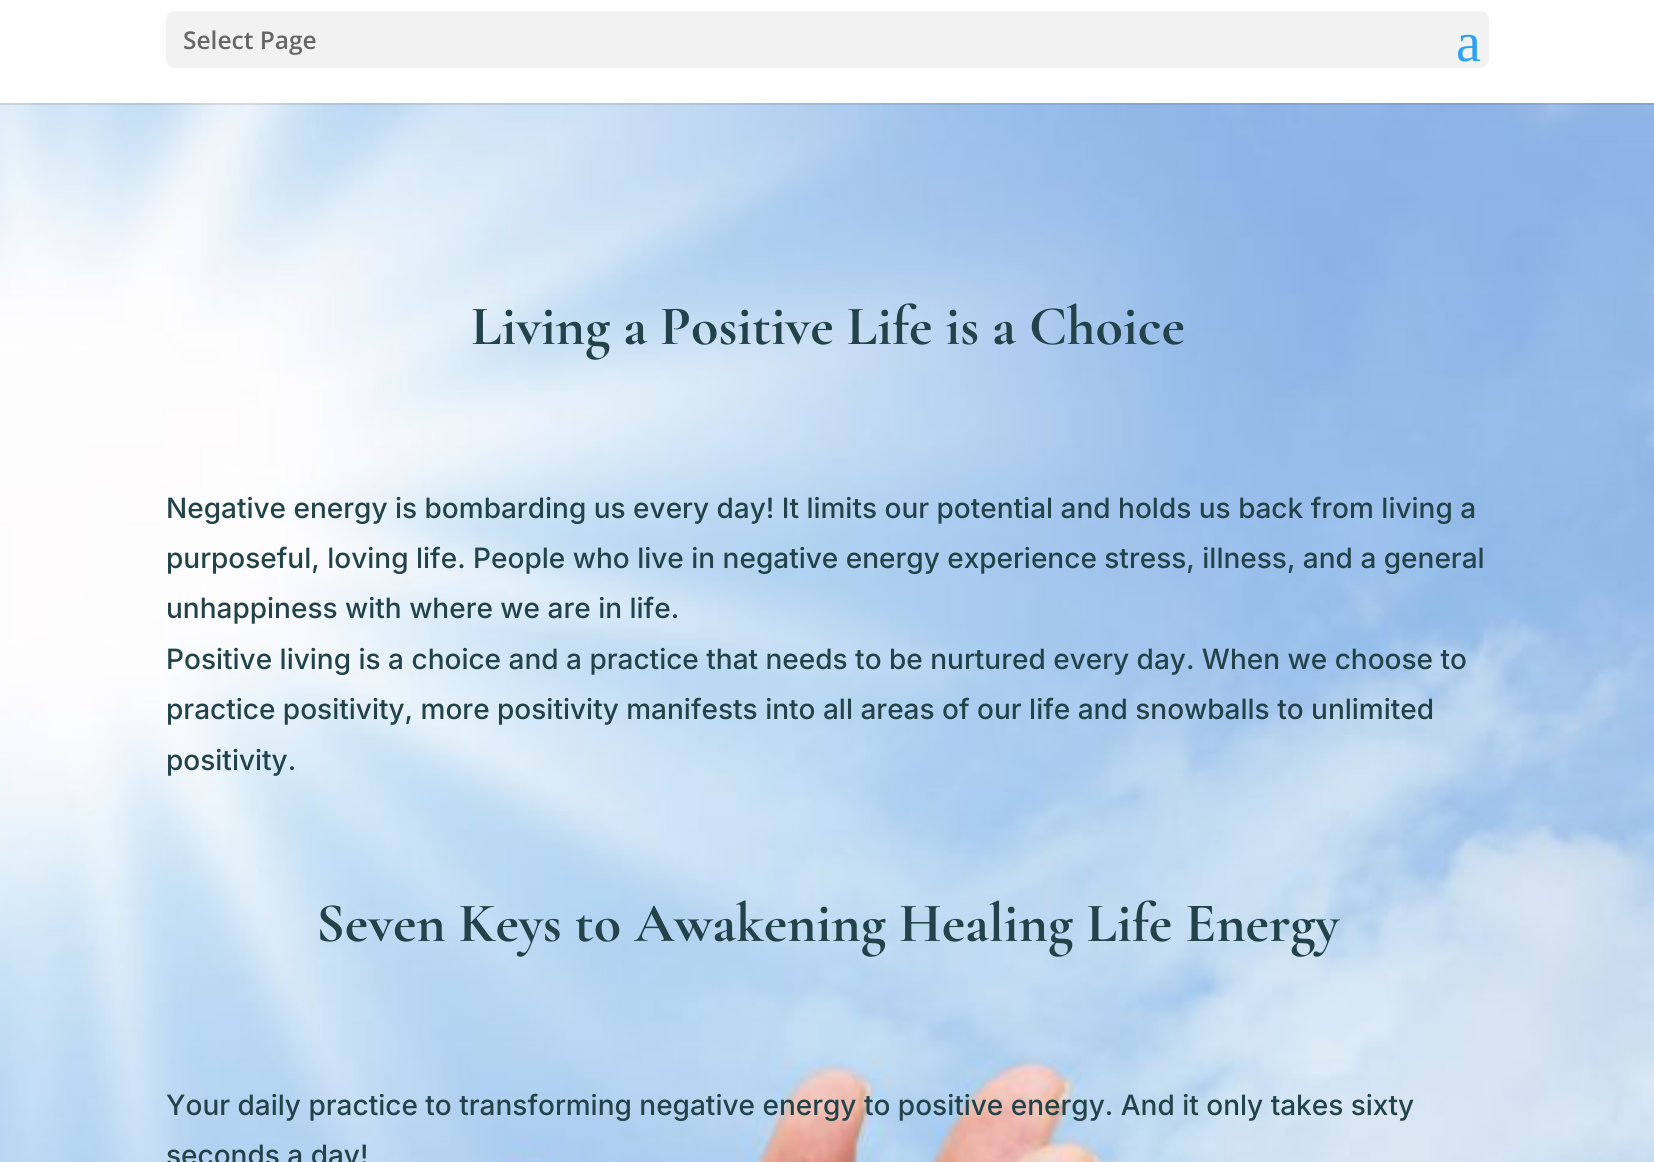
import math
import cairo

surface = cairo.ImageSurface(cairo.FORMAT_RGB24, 1654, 1162)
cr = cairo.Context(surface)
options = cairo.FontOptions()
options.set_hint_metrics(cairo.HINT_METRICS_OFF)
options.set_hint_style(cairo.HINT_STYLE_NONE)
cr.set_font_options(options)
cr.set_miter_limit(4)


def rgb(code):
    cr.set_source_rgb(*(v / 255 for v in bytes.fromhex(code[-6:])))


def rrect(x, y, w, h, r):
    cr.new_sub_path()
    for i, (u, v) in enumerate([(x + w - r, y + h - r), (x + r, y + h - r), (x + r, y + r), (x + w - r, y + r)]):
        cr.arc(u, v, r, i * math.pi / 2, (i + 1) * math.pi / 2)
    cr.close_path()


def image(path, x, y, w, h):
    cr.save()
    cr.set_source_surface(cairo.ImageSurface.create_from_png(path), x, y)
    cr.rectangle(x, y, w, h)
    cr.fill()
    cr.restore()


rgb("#ffffff")
cr.paint()
image("img/1.png", 0, 103, 1654, 1059)
cr.set_source_rgba(0, 0, 0, 0.1)
cr.new_path()
cr.move_to(0, 103)
cr.line_to(0, 105)
cr.line_to(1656, 105)
cr.line_to(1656, -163)
cr.line_to(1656, 103)
cr.close_path()
cr.fill()
rgb("#f2f2f2")
rrect(166, 11, 1323, 57, 9)
cr.fill()
cr.select_font_face("Open Sans SemiBold")
cr.set_font_size(24.5)
rgb("#666666")
cr.move_to(183, 49)
cr.show_text("Select Page")
cr.select_font_face("Liberation Serif")
cr.set_font_size(56)
rgb("#2ea3f2")
cr.move_to(1456, 61)
cr.show_text("a")
cr.select_font_face("Cormorant Garamond Light")
rgb("#22434a")
cr.move_to(471, 344)
cr.show_text("Living a Positive Life is a Choice")
cr.select_font_face("Inter Medium")
cr.set_font_size(28)
for x, y, s in [
    (166, 518, "Negative energy is bombarding us every day! It limits our potential and holds us back from living a"),
    (166, 568, "purposeful, loving life. People who live in negative energy experience stress, illness, and a general"),
    (166, 618, "unhappiness with where we are in life."),
    (166, 669, "Positive living is a choice and a practice that needs to be nurtured every day. When we choose to"),
    (166, 719, "practice positivity, more positivity manifests into all areas of our life and snowballs to unlimited"),
    (166, 770, "positivity."),
]:
    cr.move_to(x, y)
    cr.show_text(s)
cr.select_font_face("Cormorant Garamond Light")
cr.set_font_size(56)
cr.move_to(316, 941)
cr.show_text("Seven Keys to Awakening Healing Life Energy")
cr.select_font_face("Inter Medium")
cr.set_font_size(28)
cr.move_to(166, 1115)
cr.show_text("Your daily practice to transforming negative energy to positive energy. And it only takes sixty")
cr.move_to(166, 1165)
cr.show_text("seconds a day!")
surface.write_to_png("page.png")
